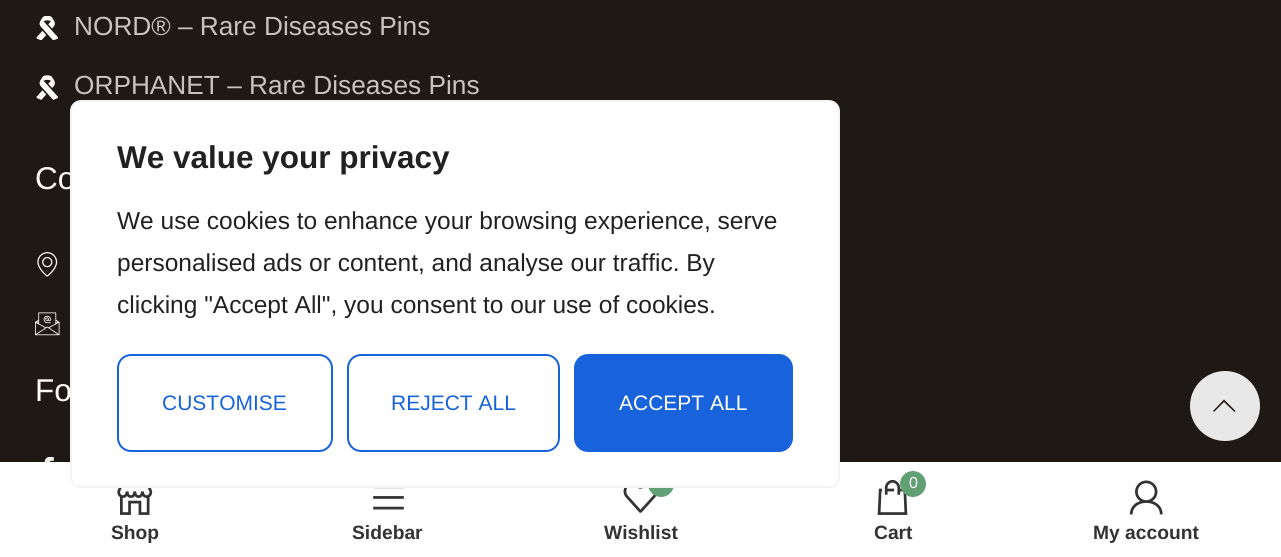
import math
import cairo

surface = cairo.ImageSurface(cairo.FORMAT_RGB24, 1281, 557)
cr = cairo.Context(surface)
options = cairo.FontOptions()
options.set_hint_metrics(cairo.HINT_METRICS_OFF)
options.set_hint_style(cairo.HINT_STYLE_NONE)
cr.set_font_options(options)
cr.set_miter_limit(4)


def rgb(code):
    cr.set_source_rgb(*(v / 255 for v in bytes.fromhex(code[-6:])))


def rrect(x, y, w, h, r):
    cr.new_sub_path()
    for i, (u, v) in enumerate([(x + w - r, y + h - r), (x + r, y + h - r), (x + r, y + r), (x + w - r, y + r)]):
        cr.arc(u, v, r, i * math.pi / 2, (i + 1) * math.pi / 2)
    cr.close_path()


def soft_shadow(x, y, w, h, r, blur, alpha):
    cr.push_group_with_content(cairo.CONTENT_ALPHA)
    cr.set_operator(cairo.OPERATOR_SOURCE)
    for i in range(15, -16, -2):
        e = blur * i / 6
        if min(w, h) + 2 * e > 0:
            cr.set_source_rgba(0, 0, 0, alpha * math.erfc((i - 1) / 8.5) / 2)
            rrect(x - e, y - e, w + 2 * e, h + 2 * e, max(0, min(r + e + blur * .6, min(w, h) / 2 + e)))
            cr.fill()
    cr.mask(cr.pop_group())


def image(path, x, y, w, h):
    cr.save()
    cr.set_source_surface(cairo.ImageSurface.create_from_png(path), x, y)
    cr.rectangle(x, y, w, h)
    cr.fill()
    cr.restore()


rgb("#1f1915")
cr.paint()
image("img/1.png", 36, 16, 22, 24)
image("img/2.png", 36, 75, 22, 25)
image("img/3.png", 37, 252, 21, 25)
image("img/4.png", 35, 312, 25, 24)
image("img/5.png", 44, 457, 10, 5)
rgb("#e9e8e8")
cr.arc(1225, 406, 35, 0, 2 * math.pi)
cr.fill()
rgb("#1f1915")
cr.new_path()
cr.move_to(1234.5, 412)
cr.line_to(1235.5, 411)
cr.line_to(1224, 399.5)
cr.line_to(1213, 411)
cr.line_to(1214, 412)
cr.line_to(1224, 402)
cr.close_path()
cr.fill()
rgb("#000000")
soft_shadow(0, 462, 1281, 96, 0, 8, 0.12)
rgb("#ffffff")
cr.rectangle(0, 462, 1281, 95)
cr.fill()
image("img/6.png", 117, 488, 36, 27)
image("img/7.png", 373, 488, 31, 22)
image("img/8.png", 623, 488, 34, 25)
rgb("#619f74")
cr.arc(661, 484, 13, 0, 2 * math.pi)
cr.fill()
image("img/9.png", 877, 479, 31, 36)
cr.arc(913, 484, 13, 0, 2 * math.pi)
cr.fill()
image("img/10.png", 1129, 480, 34, 35)
cr.select_font_face("Liberation Sans")
cr.set_font_size(26.25)
rgb("#c7c4bd")
cr.move_to(74, 35)
cr.show_text("NORD® – Rare Diseases Pins")
cr.move_to(74, 94)
cr.show_text("ORPHANET – Rare Diseases Pins")
cr.set_font_size(31.5)
rgb("#fffdf5")
cr.move_to(35, 189)
cr.show_text("Co")
cr.move_to(35, 401)
cr.show_text("Fo")
rgb("#ffffff")
rrect(71, 101, 768, 386, 10)
cr.fill_preserve()
rgb("#f4f4f4")
cr.stroke()
cr.select_font_face("Liberation Sans", cairo.FONT_SLANT_NORMAL, cairo.FONT_WEIGHT_BOLD)
rgb("#212121")
cr.move_to(117, 168)
cr.show_text("We value your privacy")
cr.select_font_face("Liberation Sans")
cr.set_font_size(24.5)
for x, y, s in [
    (117, 229, "We use cookies to enhance your browsing experience, serve"),
    (117, 271, "personalised ads or content, and analyse our traffic. By"),
    (117, 313, "clicking \"Accept All\", you consent to our use of cookies."),
]:
    cr.move_to(x, y)
    cr.show_text(s)
rrect(118, 355, 214, 96, 13)
rgb("#1863dc")
cr.stroke()
cr.set_font_size(21)
cr.move_to(162, 410)
cr.show_text("CUSTOMISE")
rrect(348, 355, 211, 96, 13)
cr.stroke()
cr.move_to(391, 410)
cr.show_text("REJECT ALL")
rrect(575, 355, 217, 96, 13)
cr.fill_preserve()
cr.stroke()
rgb("#ffffff")
cr.move_to(619, 410)
cr.show_text("ACCEPT ALL")
cr.select_font_face("Liberation Sans", cairo.FONT_SLANT_NORMAL, cairo.FONT_WEIGHT_BOLD)
cr.set_font_size(19.25)
rgb("#333333")
for x, y, s in [
    (111, 539, "Shop"),
    (352, 539, "Sidebar"),
    (604, 539, "Wishlist"),
]:
    cr.move_to(x, y)
    cr.show_text(s)
cr.select_font_face("Liberation Sans")
cr.set_font_size(16)
rgb("#ffffff")
cr.move_to(909, 488)
cr.show_text("0")
cr.select_font_face("Liberation Sans", cairo.FONT_SLANT_NORMAL, cairo.FONT_WEIGHT_BOLD)
cr.set_font_size(19.25)
rgb("#333333")
cr.move_to(874, 539)
cr.show_text("Cart")
cr.move_to(1093, 539)
cr.show_text("My account")
surface.write_to_png("page.png")
